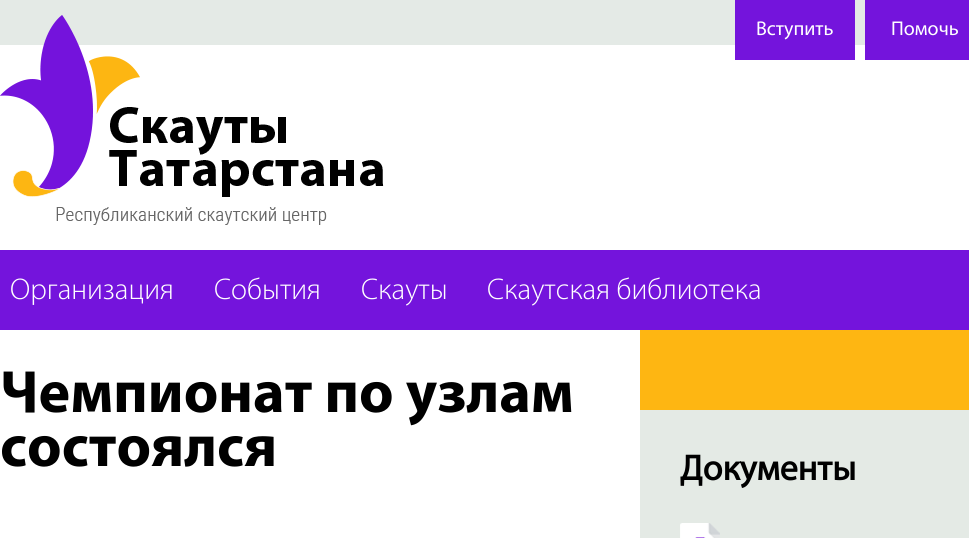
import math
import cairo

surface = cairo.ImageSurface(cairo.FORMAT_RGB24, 969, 538)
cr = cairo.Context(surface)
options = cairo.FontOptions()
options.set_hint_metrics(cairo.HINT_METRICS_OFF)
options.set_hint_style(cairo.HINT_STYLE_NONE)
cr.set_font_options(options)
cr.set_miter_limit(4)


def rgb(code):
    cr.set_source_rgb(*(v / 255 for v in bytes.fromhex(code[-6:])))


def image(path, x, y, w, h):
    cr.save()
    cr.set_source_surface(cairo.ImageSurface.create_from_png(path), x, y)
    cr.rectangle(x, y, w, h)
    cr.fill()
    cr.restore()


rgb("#ffffff")
cr.paint()
rgb("#e4eae6")
cr.rectangle(0, 0, 865, 45)
cr.fill()
image("img/1.png", 0, 15, 384, 210)
for x, y, w, h, color in [
    (735, 0, 120, 60, "#7414dc"),
    (865, 0, 104, 60, "#7414dc"),
    (0, 250, 969, 80, "#7414dc"),
    (640, 330, 329, 80, "#feb612"),
    (640, 410, 329, 128, "#e4eae5"),
]:
    rgb(color)
    cr.rectangle(x, y, w, h)
    cr.fill()
image("img/2.png", 680, 523, 40, 15)
cr.select_font_face("Myriad")
cr.set_font_size(20)
rgb("#ffffff")
cr.move_to(756, 35)
cr.show_text("Вступить")
cr.move_to(891, 35)
cr.show_text("Помочь")
cr.select_font_face("Myriad Light")
cr.set_font_size(30)
for x, y, s in [
    (10, 299, "Организация"),
    (214, 299, "События"),
    (361, 299, "Скауты"),
    (487, 299, "Скаутская библиотека"),
]:
    cr.move_to(x, y)
    cr.show_text(s)
cr.select_font_face("Myriad", cairo.FONT_SLANT_NORMAL, cairo.FONT_WEIGHT_BOLD)
cr.set_font_size(60)
rgb("#000000")
cr.move_to(0, 412)
cr.show_text("Чемпионат по узлам")
cr.move_to(0, 466)
cr.show_text("состоялся")
cr.select_font_face("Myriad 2", cairo.FONT_SLANT_NORMAL, cairo.FONT_WEIGHT_BOLD)
cr.set_font_size(36)
cr.move_to(680, 480)
cr.show_text("Документы")
surface.write_to_png("page.png")
